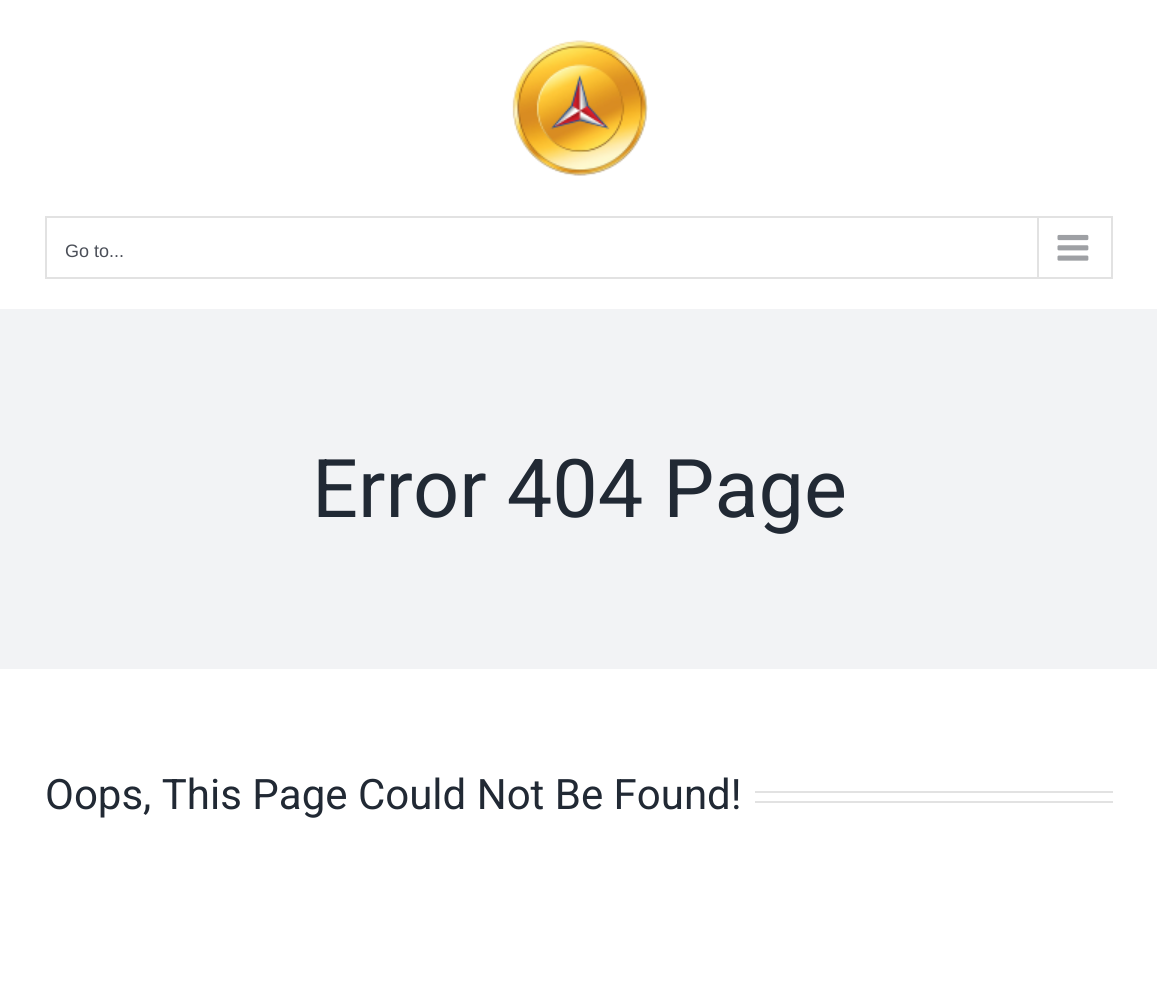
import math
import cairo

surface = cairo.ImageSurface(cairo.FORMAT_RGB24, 1157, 1003)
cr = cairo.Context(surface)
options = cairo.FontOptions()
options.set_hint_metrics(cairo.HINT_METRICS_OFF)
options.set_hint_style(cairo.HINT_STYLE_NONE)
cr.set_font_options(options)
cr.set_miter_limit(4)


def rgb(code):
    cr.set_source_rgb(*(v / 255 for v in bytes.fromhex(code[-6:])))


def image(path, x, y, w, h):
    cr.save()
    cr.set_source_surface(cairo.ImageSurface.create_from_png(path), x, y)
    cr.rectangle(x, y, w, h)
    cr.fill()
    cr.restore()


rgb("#ffffff")
cr.paint()
image("img/1.png", 512, 40, 136, 136)
cr.rectangle(46, 217, 1066, 61)
rgb("#e2e2e2")
cr.stroke()
cr.rectangle(1037, 218, 2, 60)
cr.fill()
image("img/2.png", 1057, 234, 32, 27)
for x, y, w, h, color in [
    (0, 309, 1157, 360, "#f2f3f5"),
    (755, 791, 358, 2, "#e2e2e2"),
    (755, 801, 358, 2, "#e2e2e2"),
]:
    rgb(color)
    cr.rectangle(x, y, w, h)
    cr.fill()
cr.select_font_face("Liberation Sans")
cr.set_font_size(18)
rgb("#4a4e57")
cr.move_to(65, 257)
cr.show_text("Go to...")
cr.select_font_face("Roboto")
cr.set_font_size(81)
rgb("#212934")
cr.move_to(312, 517)
cr.show_text("Error 404 Page")
cr.set_font_size(42)
cr.move_to(45, 809)
cr.show_text("Oops, This Page Could Not Be Found!")
surface.write_to_png("page.png")
